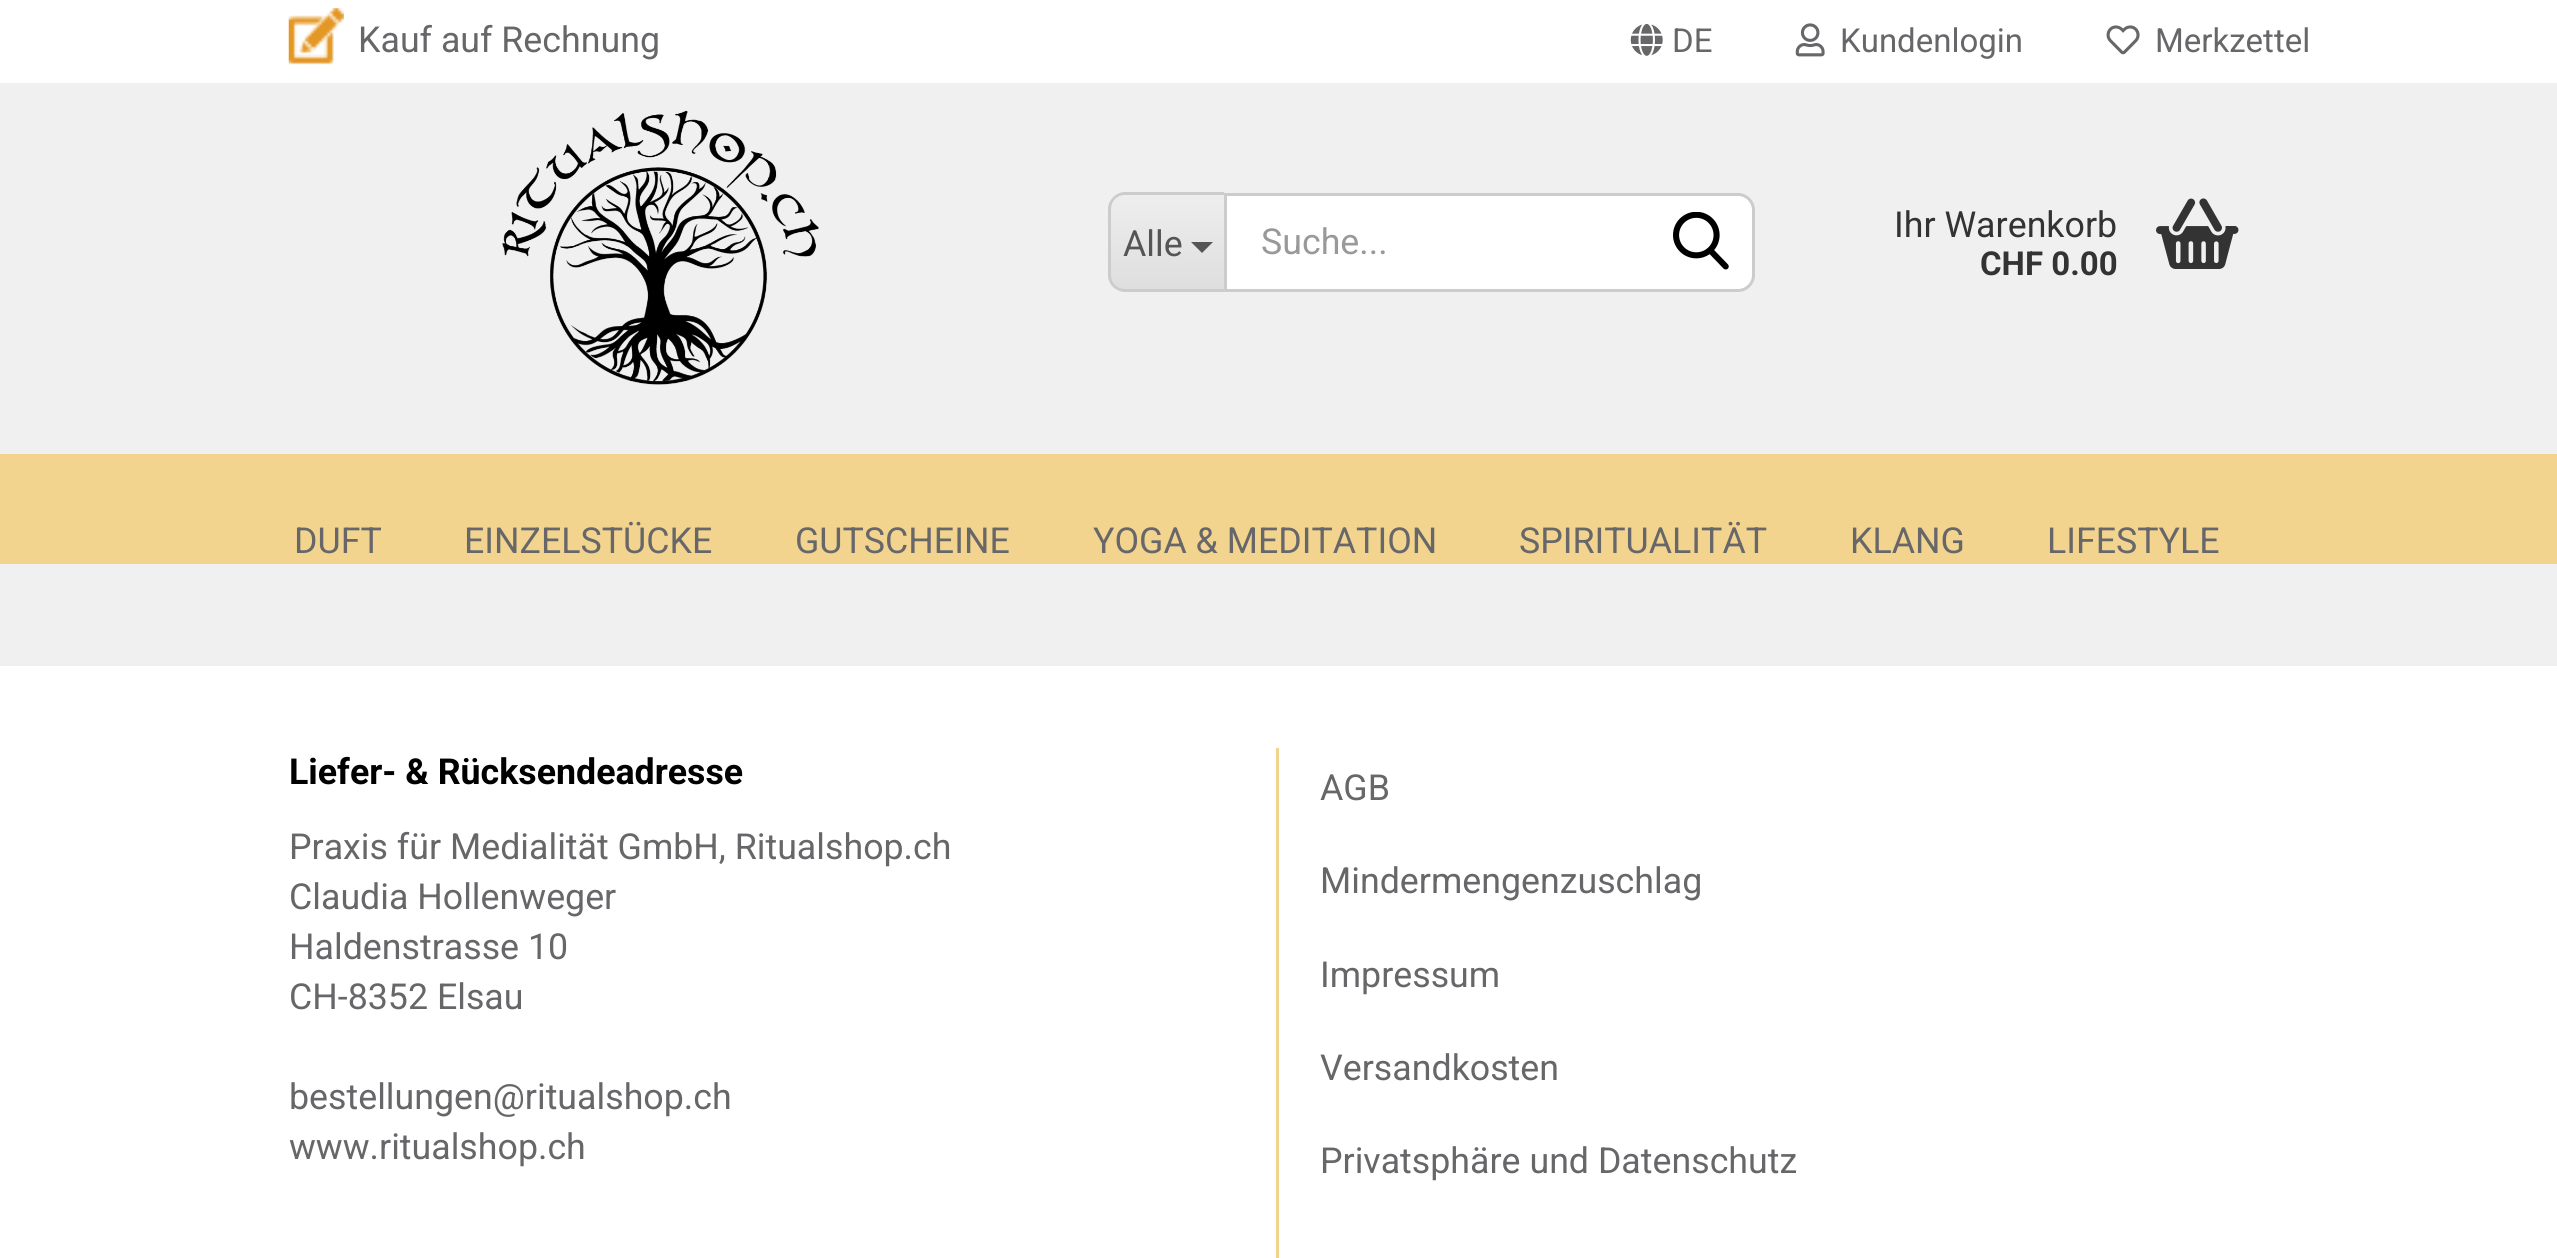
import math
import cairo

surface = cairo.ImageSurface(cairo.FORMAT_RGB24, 2557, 1258)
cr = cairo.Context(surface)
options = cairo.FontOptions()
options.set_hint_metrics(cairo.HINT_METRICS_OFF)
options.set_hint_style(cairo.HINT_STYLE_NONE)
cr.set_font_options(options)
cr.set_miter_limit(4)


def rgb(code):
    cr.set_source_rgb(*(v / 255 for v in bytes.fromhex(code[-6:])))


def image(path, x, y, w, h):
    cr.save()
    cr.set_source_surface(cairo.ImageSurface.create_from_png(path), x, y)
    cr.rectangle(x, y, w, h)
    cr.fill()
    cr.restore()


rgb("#ffffff")
cr.paint()
rgb("#f0f0f0")
cr.rectangle(0, 83, 2557, 371)
cr.fill()
image("img/1.png", 288, 8, 56, 57)
image("img/2.png", 1630, 23, 33, 33)
image("img/3.png", 1795, 23, 30, 34)
image("img/4.png", 2106, 25, 34, 30)
image("img/5.png", 502, 110, 317, 275)
rgb("#f3f3f3")
cr.new_path()
cr.move_to(1125, 193)
cr.line_to(1224, 193)
cr.line_to(1224, 292)
cr.line_to(1125, 292)
cr.curve_to(1115.5, 292, 1108, 284.5, 1108, 275)
cr.line_to(1108, 210)
cr.curve_to(1108, 200.5, 1115.5, 193, 1125, 193)
cr.close_path()
cr.fill()
cr.save()
cr.new_path()
cr.move_to(1125, 193)
cr.line_to(1224, 193)
cr.line_to(1224, 292)
cr.line_to(1125, 292)
cr.curve_to(1115.5, 292, 1108, 284.5, 1108, 275)
cr.line_to(1108, 210)
cr.curve_to(1108, 200.5, 1115.5, 193, 1125, 193)
cr.close_path()
cr.clip()
gradient = cairo.LinearGradient(1167, 195, 1167, 289)
gradient.add_color_stop_rgba(0, 0.933, 0.933, 0.933, 1)
gradient.add_color_stop_rgba(1, 0.871, 0.871, 0.871, 1)
cr.set_source(gradient)
cr.rectangle(1108, 195, 116, 94)
cr.fill()
cr.restore()
rgb("#cccccc")
cr.set_fill_rule(cairo.FILL_RULE_EVEN_ODD)
cr.new_path()
cr.move_to(1125, 192)
cr.line_to(1224, 192)
cr.line_to(1224, 292)
cr.line_to(1125, 292)
cr.curve_to(1116, 292, 1108, 284, 1108, 275)
cr.line_to(1108, 209)
cr.curve_to(1108, 200, 1116, 192, 1125, 192)
cr.close_path()
cr.move_to(1125, 195)
cr.line_to(1224, 195)
cr.line_to(1224, 289)
cr.line_to(1125, 289)
cr.curve_to(1117, 289, 1111, 283, 1111, 275)
cr.line_to(1111, 209)
cr.curve_to(1111, 201, 1117, 195, 1125, 195)
cr.close_path()
cr.fill()
rgb("#555555")
cr.set_fill_rule(cairo.FILL_RULE_WINDING)
cr.new_path()
cr.move_to(1191, 242)
cr.line_to(1213, 242)
cr.line_to(1202, 253)
cr.close_path()
cr.fill()
rgb("#ffffff")
cr.new_path()
cr.move_to(1225.5, 194.5)
cr.line_to(1738, 194.5)
cr.curve_to(1746.5, 194.5, 1753.5, 201.5, 1753.5, 210)
cr.line_to(1753.5, 275)
cr.curve_to(1753.5, 283.5, 1746.5, 290.5, 1738, 290.5)
cr.line_to(1225.5, 290.5)
cr.close_path()
cr.fill_preserve()
rgb("#cccccc")
cr.set_line_width(3)
cr.stroke()
image("img/6.png", 1673, 212, 56, 58)
image("img/7.png", 2156, 198, 83, 71)
for x, y, w, h, color in [
    (0, 454, 2557, 110, "#f2d48f"),
    (0, 564, 2557, 102, "#f0f0f0"),
    (1276, 748, 3, 510, "#f2d48f"),
]:
    rgb(color)
    cr.rectangle(x, y, w, h)
    cr.fill()
cr.select_font_face("Roboto")
cr.set_font_size(35.75)
rgb("#67676a")
cr.move_to(358, 52)
cr.show_text("Kauf auf Rechnung")
cr.set_font_size(33)
for x, y, s in [
    (1672, 52, "DE"),
    (1840, 52, "Kundenlogin"),
    (2155, 52, "Merkzettel"),
]:
    cr.move_to(x, y)
    cr.show_text(s)
cr.set_font_size(35.75)
rgb("#555555")
cr.move_to(1123, 256)
cr.show_text("Alle")
rgb("#999999")
cr.move_to(1261, 254)
cr.show_text("Suche...")
rgb("#333333")
cr.move_to(1894, 237)
cr.show_text("Ihr Warenkorb")
cr.select_font_face("Roboto", cairo.FONT_SLANT_NORMAL, cairo.FONT_WEIGHT_BOLD)
cr.set_font_size(33)
cr.move_to(1980, 275)
cr.show_text("CHF 0.00")
cr.select_font_face("Roboto")
cr.set_font_size(35.75)
rgb("#67676a")
for x, y, s in [
    (294, 553, "DUFT"),
    (464, 553, "EINZELSTÜCKE"),
    (795, 553, "GUTSCHEINE"),
    (1093, 553, "YOGA & MEDITATION"),
    (1519, 553, "SPIRITUALITÄT"),
    (1850, 553, "KLANG"),
    (2047, 553, "LIFESTYLE"),
]:
    cr.move_to(x, y)
    cr.show_text(s)
cr.select_font_face("Roboto", cairo.FONT_SLANT_NORMAL, cairo.FONT_WEIGHT_BOLD)
rgb("#000000")
cr.move_to(289, 784)
cr.show_text("Liefer- & Rücksendeadresse")
cr.select_font_face("Roboto")
rgb("#67676a")
for x, y, s in [
    (289, 859, "Praxis für Medialität GmbH, Ritualshop.ch"),
    (289, 909, "Claudia Hollenweger"),
    (289, 959, "Haldenstrasse 10"),
    (289, 1009, "CH-8352 Elsau"),
    (289, 1109, "bestellungen@ritualshop.ch"),
    (289, 1159, "www.ritualshop.ch"),
    (1320, 800, "AGB"),
    (1320, 893, "Mindermengenzuschlag"),
    (1320, 987, "Impressum"),
    (1320, 1080, "Versandkosten"),
    (1320, 1173, "Privatsphäre und Datenschutz"),
]:
    cr.move_to(x, y)
    cr.show_text(s)
surface.write_to_png("page.png")
